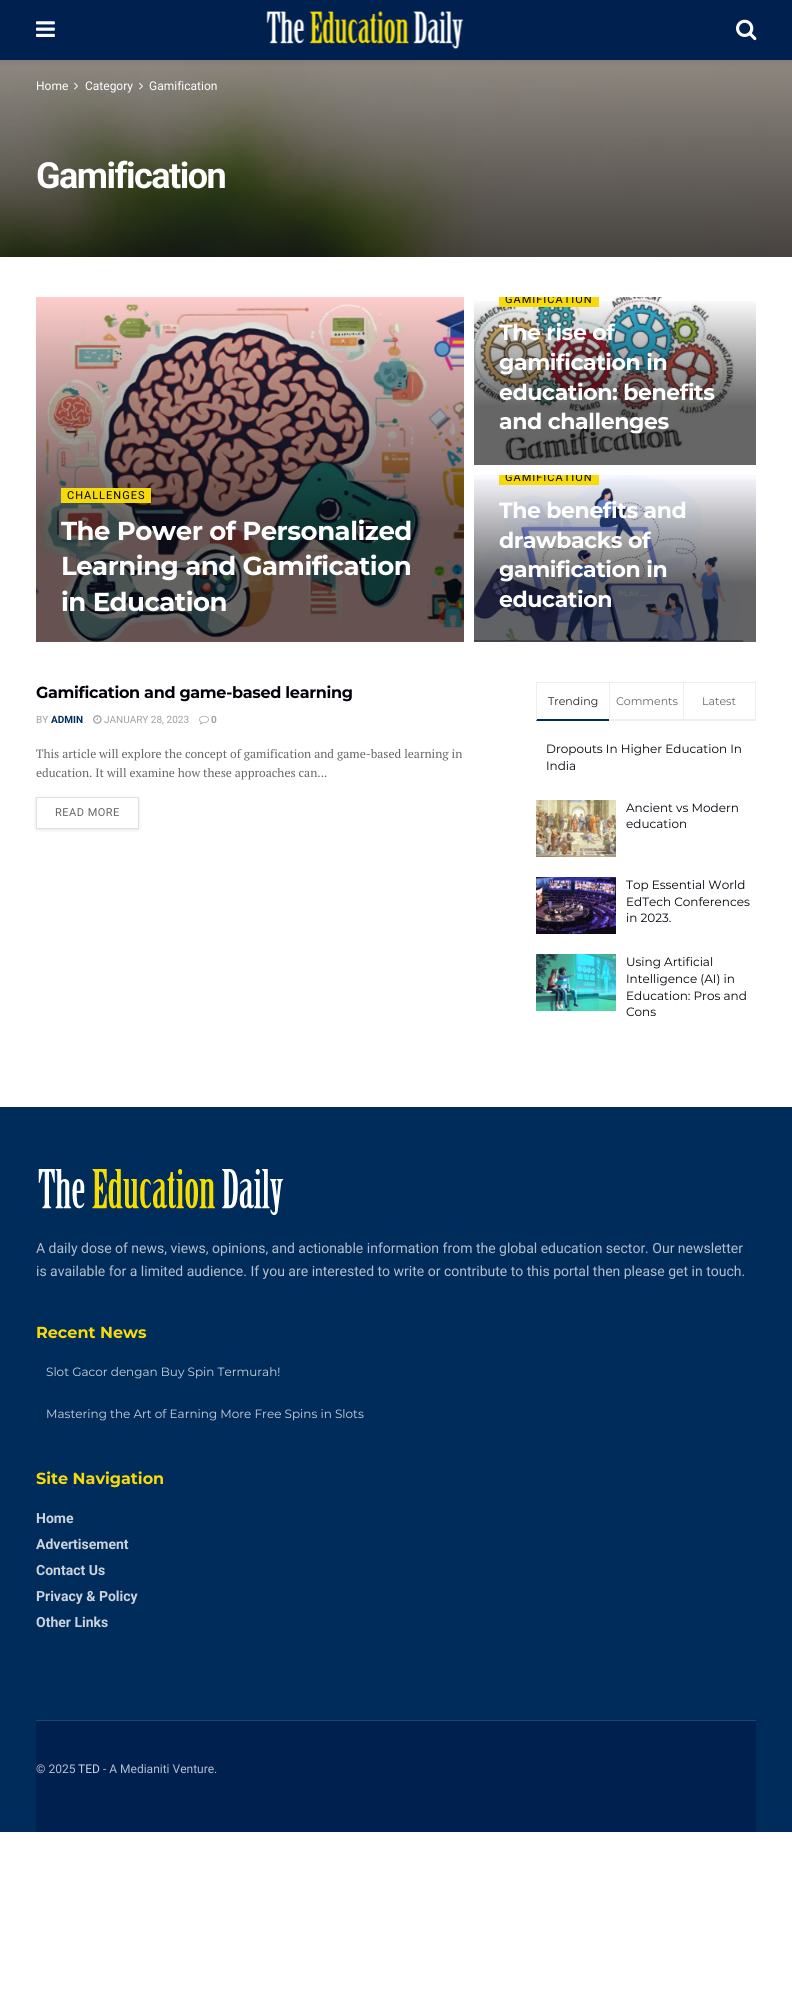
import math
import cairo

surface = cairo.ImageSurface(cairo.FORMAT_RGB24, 792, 2000)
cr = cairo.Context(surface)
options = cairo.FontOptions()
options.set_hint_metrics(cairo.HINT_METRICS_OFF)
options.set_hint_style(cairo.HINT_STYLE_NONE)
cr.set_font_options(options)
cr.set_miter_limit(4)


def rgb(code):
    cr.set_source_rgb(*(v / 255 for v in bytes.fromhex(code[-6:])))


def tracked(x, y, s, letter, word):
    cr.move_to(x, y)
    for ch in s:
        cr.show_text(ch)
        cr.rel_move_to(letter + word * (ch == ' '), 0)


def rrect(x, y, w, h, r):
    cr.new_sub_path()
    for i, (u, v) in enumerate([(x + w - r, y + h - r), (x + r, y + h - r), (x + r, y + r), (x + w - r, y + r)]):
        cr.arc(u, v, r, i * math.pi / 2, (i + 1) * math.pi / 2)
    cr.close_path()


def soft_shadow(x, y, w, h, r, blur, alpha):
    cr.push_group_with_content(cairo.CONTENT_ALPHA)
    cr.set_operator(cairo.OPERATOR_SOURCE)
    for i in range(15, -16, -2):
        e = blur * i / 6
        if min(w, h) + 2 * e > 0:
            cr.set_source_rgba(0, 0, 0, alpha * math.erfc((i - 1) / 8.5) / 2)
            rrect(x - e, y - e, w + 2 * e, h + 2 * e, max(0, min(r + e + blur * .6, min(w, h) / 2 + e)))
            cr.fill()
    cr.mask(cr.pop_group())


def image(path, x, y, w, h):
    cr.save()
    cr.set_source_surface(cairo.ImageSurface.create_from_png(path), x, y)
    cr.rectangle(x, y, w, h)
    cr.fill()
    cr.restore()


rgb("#ffffff")
cr.paint()
image("img/4.png", 0, 60, 792, 197)
rgb("#000000")
soft_shadow(0, 2, 792, 60, 0, 3, 0.1)
rgb("#00214f")
cr.rectangle(0, 0, 792, 60)
cr.fill()
image("img/1.png", 36, 21, 19, 16)
image("img/2.png", 266, 11, 198, 38)
image("img/3.png", 736, 19, 21, 22)
image("img/5.png", 74, 82, 4, 8)
image("img/6.png", 139, 82, 4, 8)
image("img/7.png", 36, 297, 428, 345)
rgb("#f6da09")
cr.rectangle(61, 488, 90, 15)
cr.fill()
image("img/8.png", 474, 297, 282, 168)
gradient = cairo.LinearGradient(600, 297, 600, 465)
gradient.add_color_stop_rgba(0, 0, 0, 0, 0)
gradient.add_color_stop_rgba(0.65, 0, 0, 0, 0.6)
gradient.add_color_stop_rgba(1, 0, 0, 0, 0.6)
cr.set_source(gradient)
cr.rectangle(474, 301, 282, 164)
cr.fill()
rgb("#f6da09")
cr.rectangle(499, 297, 100, 10)
cr.fill()
image("img/9.png", 474, 475, 282, 167)
gradient = cairo.LinearGradient(600, 475, 600, 642)
gradient.add_color_stop_rgba(0, 0, 0, 0, 0)
gradient.add_color_stop_rgba(0.65, 0, 0, 0, 0.6)
gradient.add_color_stop_rgba(1, 0, 0, 0, 0.6)
cr.set_source(gradient)
cr.rectangle(474, 479, 282, 163)
cr.fill()
rgb("#f6da09")
cr.rectangle(499, 475, 100, 10)
cr.fill()
image("img/10.png", 93, 715, 9, 9)
image("img/11.png", 199, 715, 10, 10)
cr.save()
cr.set_fill_rule(cairo.FILL_RULE_EVEN_ODD)
cr.new_path()
cr.move_to(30, 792)
cr.line_to(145, 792)
cr.line_to(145, 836)
cr.line_to(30, 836)
cr.close_path()
cr.move_to(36, 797)
cr.line_to(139, 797)
cr.line_to(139, 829)
cr.line_to(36, 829)
cr.close_path()
cr.clip()
rgb("#000000")
soft_shadow(36, 798, 103, 32, 0, 1.5, 0.1)
cr.restore()
cr.rectangle(36.5, 797.5, 102, 31)
rgb("#e0e0e0")
cr.set_line_width(1)
cr.stroke()
rgb("#eeeeee")
cr.rectangle(536, 682, 220, 1)
cr.fill()
rgb("#002e5b")
cr.new_path()
cr.move_to(609, 721)
cr.line_to(536, 721)
cr.line_to(537, 719)
cr.line_to(609, 719)
cr.close_path()
cr.fill()
rgb("#eeeeee")
cr.new_path()
cr.move_to(536, 721)
cr.line_to(536, 682)
cr.line_to(537, 683)
cr.line_to(537, 719)
cr.close_path()
cr.fill()
for x, y, w, h, color in [
    (609, 719, 74, 2, "#eeeeee"),
    (609, 682, 1, 39, "#eeeeee"),
    (755, 682, 1, 39, "#eeeeee"),
    (683, 719, 73, 2, "#eeeeee"),
    (683, 682, 1, 39, "#eeeeee"),
]:
    rgb(color)
    cr.rectangle(x, y, w, h)
    cr.fill()
image("img/12.png", 536, 800, 80, 57)
image("img/13.png", 536, 877, 80, 57)
image("img/14.png", 536, 954, 80, 57)
rgb("#002c5b")
cr.rectangle(0, 1107, 792, 725)
cr.fill()
image("img/15.png", 38, 1169, 246, 46)
rgb("#00214f")
cr.rectangle(36, 1721, 720, 111)
cr.fill()
rgb("#264269")
cr.rectangle(36, 1720, 720, 1)
cr.fill()
cr.select_font_face("Roboto")
cr.set_font_size(12)
rgb("#ffffff")
for x, y, s in [
    (36, 90, "Home"),
    (85, 90, "Category"),
    (149, 90, "Gamification"),
]:
    cr.move_to(x, y)
    cr.show_text(s)
cr.select_font_face("Roboto", cairo.FONT_SLANT_NORMAL, cairo.FONT_WEIGHT_BOLD)
cr.set_font_size(36)
tracked(36, 188, "Gamification", -1.5, 0)
cr.select_font_face("Roboto")
cr.set_font_size(11)
rgb("#02010a")
tracked(67, 499, "CHALLENGES", 1, 0)
cr.select_font_face("Montserrat", cairo.FONT_SLANT_NORMAL, cairo.FONT_WEIGHT_BOLD)
cr.set_font_size(26)
rgb("#ffffff")
for x, y, s in [
    (61, 540, "The Power of Personalized"),
    (61, 575, "Learning and Gamification"),
    (61, 611, "in Education"),
]:
    tracked(x, y, s, -0.5, 0)
cr.save()
cr.rectangle(474, 297, 282, 168)
cr.clip()
cr.select_font_face("Roboto")
cr.set_font_size(11)
rgb("#02010a")
tracked(505, 303, "GAMIFICATION", 1, 0)
cr.restore()
cr.set_font_size(22)
for x, y, s in [
    (499, 340, "The rise of"),
    (499, 370, "gamification in"),
    (499, 400, "education: benefits"),
    (499, 429, "and challenges"),
]:
    tracked(x, y, s, -0.4, 0)
cr.save()
cr.rectangle(474, 475, 282, 167)
cr.clip()
cr.select_font_face("Roboto")
cr.set_font_size(11)
rgb("#02010a")
tracked(505, 481, "GAMIFICATION", 1, 0)
cr.restore()
for x, y, s in [
    (499, 518, "The benefits and"),
    (499, 548, "drawbacks of"),
    (499, 577, "gamification in"),
    (499, 607, "education"),
]:
    tracked(x, y, s, -0.4, 0)
cr.set_font_size(16)
rgb("#02010a")
tracked(36, 698, "Gamification and game-based learning", -0.3, 0)
cr.select_font_face("Roboto")
cr.set_font_size(10)
rgb("#a0a0a0")
cr.move_to(36, 723)
cr.show_text("BY")
cr.select_font_face("Roboto", cairo.FONT_SLANT_NORMAL, cairo.FONT_WEIGHT_BOLD)
rgb("#002e5b")
cr.move_to(51, 723)
cr.show_text("ADMIN")
cr.select_font_face("Roboto")
rgb("#a0a0a0")
cr.move_to(104, 723)
cr.show_text("JANUARY 28, 2023")
cr.select_font_face("Roboto", cairo.FONT_SLANT_NORMAL, cairo.FONT_WEIGHT_BOLD)
cr.move_to(211, 723)
cr.show_text("0")
cr.select_font_face("PT Serif")
cr.set_font_size(12)
rgb("#666666")
cr.move_to(36, 758)
cr.show_text("This article will explore the concept of gamification and game-based learning in")
cr.move_to(36, 777)
cr.show_text("education. It will examine how these approaches can...")
cr.select_font_face("Roboto")
cr.set_font_size(11)
tracked(55, 816, "READ MORE", 0.5, 0)
cr.select_font_face("Montserrat")
rgb("#212121")
cr.move_to(548, 705)
cr.show_text("Trending")
rgb("#666666")
cr.move_to(616, 705)
cr.show_text("Comments")
cr.move_to(702, 705)
cr.show_text("Latest")
cr.set_font_size(12)
rgb("#02010a")
for x, y, s in [
    (546, 753, "Dropouts In Higher Education In"),
    (546, 770, "India"),
    (626, 812, "Ancient vs Modern"),
    (626, 828, "education"),
    (626, 889, "Top Essential World"),
    (626, 906, "EdTech Conferences"),
    (626, 922, "in 2023."),
    (626, 966, "Using Artificial"),
    (626, 983, "Intelligence (AI) in"),
    (626, 1000, "Education: Pros and"),
    (626, 1016, "Cons"),
]:
    cr.move_to(x, y)
    cr.show_text(s)
cr.select_font_face("Roboto")
cr.set_font_size(14)
rgb("#b2c0cd")
cr.move_to(36, 1253)
cr.show_text("A daily dose of news, views, opinions, and actionable information from the global education sector. Our newsletter")
cr.move_to(36, 1276)
cr.show_text("is available for a limited audience. If you are interested to write or contribute to this portal then please get in touch.")
cr.select_font_face("Montserrat", cairo.FONT_SLANT_NORMAL, cairo.FONT_WEIGHT_BOLD)
cr.set_font_size(16)
rgb("#f6da09")
cr.move_to(36, 1338)
cr.show_text("Recent News")
cr.select_font_face("Montserrat")
cr.set_font_size(12)
rgb("#ccd3dc")
cr.move_to(46, 1376)
cr.show_text("Slot Gacor dengan Buy Spin Termurah!")
cr.move_to(46, 1418)
cr.show_text("Mastering the Art of Earning More Free Spins in Slots")
cr.select_font_face("Montserrat", cairo.FONT_SLANT_NORMAL, cairo.FONT_WEIGHT_BOLD)
cr.set_font_size(16)
rgb("#f6da09")
cr.move_to(36, 1484)
cr.show_text("Site Navigation")
cr.select_font_face("Roboto", cairo.FONT_SLANT_NORMAL, cairo.FONT_WEIGHT_BOLD)
cr.set_font_size(14)
rgb("#ccd3dc")
for x, y, s in [
    (36, 1523, "Home"),
    (36, 1549, "Advertisement"),
    (36, 1575, "Contact Us"),
    (36, 1601, "Privacy & Policy"),
    (36, 1627, "Other Links"),
]:
    cr.move_to(x, y)
    cr.show_text(s)
cr.select_font_face("Roboto")
cr.set_font_size(12)
rgb("#b2c0cd")
cr.move_to(36, 1773)
cr.show_text("© 2025")
rgb("#ccd3dc")
cr.move_to(78, 1773)
cr.show_text("TED")
rgb("#b2c0cd")
cr.move_to(103, 1773)
cr.show_text("- A Medianiti Venture.")
surface.write_to_png("page.png")
